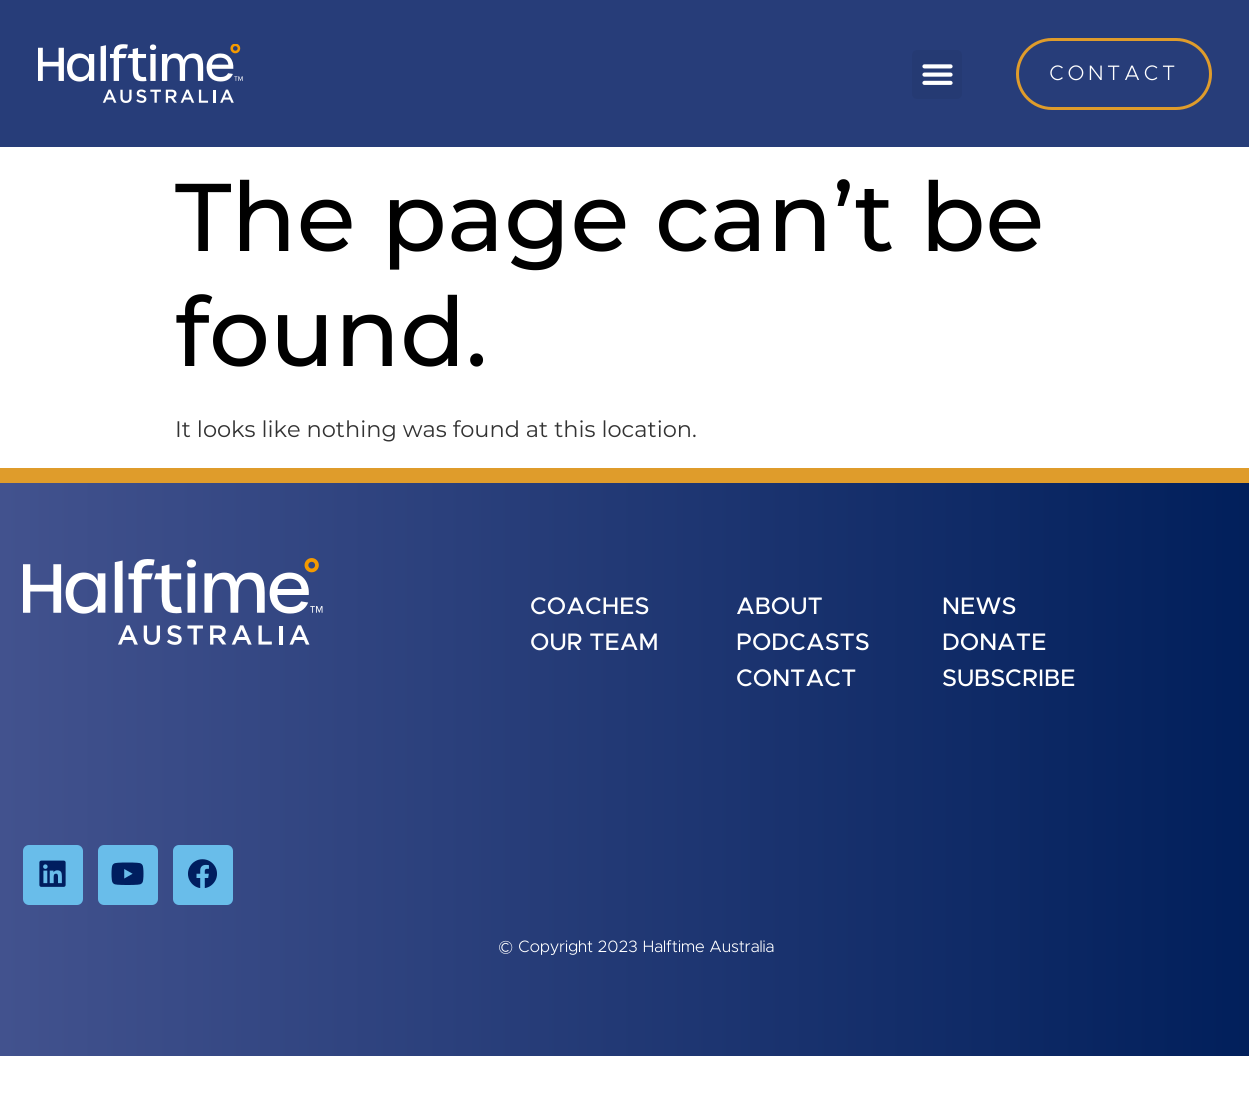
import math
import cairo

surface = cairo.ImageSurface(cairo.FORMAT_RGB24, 1249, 1094)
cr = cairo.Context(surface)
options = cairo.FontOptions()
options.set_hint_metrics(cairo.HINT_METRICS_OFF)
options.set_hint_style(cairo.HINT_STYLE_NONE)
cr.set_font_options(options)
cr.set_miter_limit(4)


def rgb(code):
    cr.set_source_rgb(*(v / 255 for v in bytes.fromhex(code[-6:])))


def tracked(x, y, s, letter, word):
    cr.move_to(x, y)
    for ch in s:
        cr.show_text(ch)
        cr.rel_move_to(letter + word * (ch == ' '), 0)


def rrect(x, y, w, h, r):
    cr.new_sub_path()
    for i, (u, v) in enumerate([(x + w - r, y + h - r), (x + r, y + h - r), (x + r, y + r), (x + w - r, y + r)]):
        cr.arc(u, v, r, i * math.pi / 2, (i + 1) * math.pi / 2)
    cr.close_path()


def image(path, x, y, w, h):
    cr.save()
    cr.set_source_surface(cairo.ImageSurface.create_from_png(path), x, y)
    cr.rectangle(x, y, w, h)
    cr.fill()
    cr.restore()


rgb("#ffffff")
cr.paint()
rgb("#273d79")
cr.rectangle(0, 0, 1249, 147)
cr.fill()
image("img/1.png", 38, 44, 205, 59)
rgb("#253a73")
rrect(912, 50, 50, 49, 5)
cr.fill()
image("img/2.png", 922, 64, 31, 21)
rrect(1017.5, 39.5, 193, 69, 34.5)
rgb("#df9c2b")
cr.set_line_width(3)
cr.stroke()
cr.rectangle(0, 468, 1249, 15)
cr.fill()
gradient = cairo.LinearGradient(0, 694, 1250, 694)
gradient.add_color_stop_rgba(0, 0.259, 0.322, 0.557, 1)
gradient.add_color_stop_rgba(1, 0.004, 0.122, 0.357, 1)
cr.set_source(gradient)
cr.rectangle(0, 483, 1249, 422)
cr.fill()
image("img/3.png", 23, 558, 300, 87)
rgb("#69bdea")
rrect(23, 845, 60, 60, 6)
cr.fill()
image("img/4.png", 39, 860, 27, 27)
rrect(98, 845, 60, 60, 6)
cr.fill()
image("img/5.png", 111, 862, 33, 23)
rrect(173, 845, 60, 60, 6)
cr.fill()
image("img/6.png", 188, 859, 29, 29)
gradient = cairo.LinearGradient(0, 980, 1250, 980)
gradient.add_color_stop_rgba(0, 0.259, 0.322, 0.557, 1)
gradient.add_color_stop_rgba(1, 0.004, 0.122, 0.357, 1)
cr.set_source(gradient)
cr.rectangle(0, 905, 1249, 151)
cr.fill()
cr.select_font_face("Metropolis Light")
cr.set_font_size(21)
rgb("#ffffff")
tracked(1049, 80, "CONTACT", 3.25, 0)
cr.select_font_face("Montserrat Medium")
cr.set_font_size(96)
rgb("#000000")
cr.move_to(175, 251)
cr.show_text("The page can’t be")
cr.move_to(175, 366)
cr.show_text("found.")
cr.select_font_face("Montserrat")
cr.set_font_size(22.5)
rgb("#333333")
cr.move_to(175, 437)
cr.show_text("It looks like nothing was found at this location.")
cr.select_font_face("Metropolis Medium")
cr.set_font_size(24)
rgb("#ffffff")
for x, y, s in [
    (530, 614, "COACHES"),
    (530, 650, "OUR TEAM"),
    (736, 614, "ABOUT"),
    (736, 650, "PODCASTS"),
    (736, 686, "CONTACT"),
    (942, 614, "NEWS"),
    (942, 650, "DONATE"),
    (942, 686, "SUBSCRIBE"),
]:
    cr.move_to(x, y)
    cr.show_text(s)
cr.select_font_face("Metropolis Light")
cr.set_font_size(16.5)
cr.move_to(498, 952)
cr.show_text("© Copyright 2023 Halftime Australia")
surface.write_to_png("page.png")
